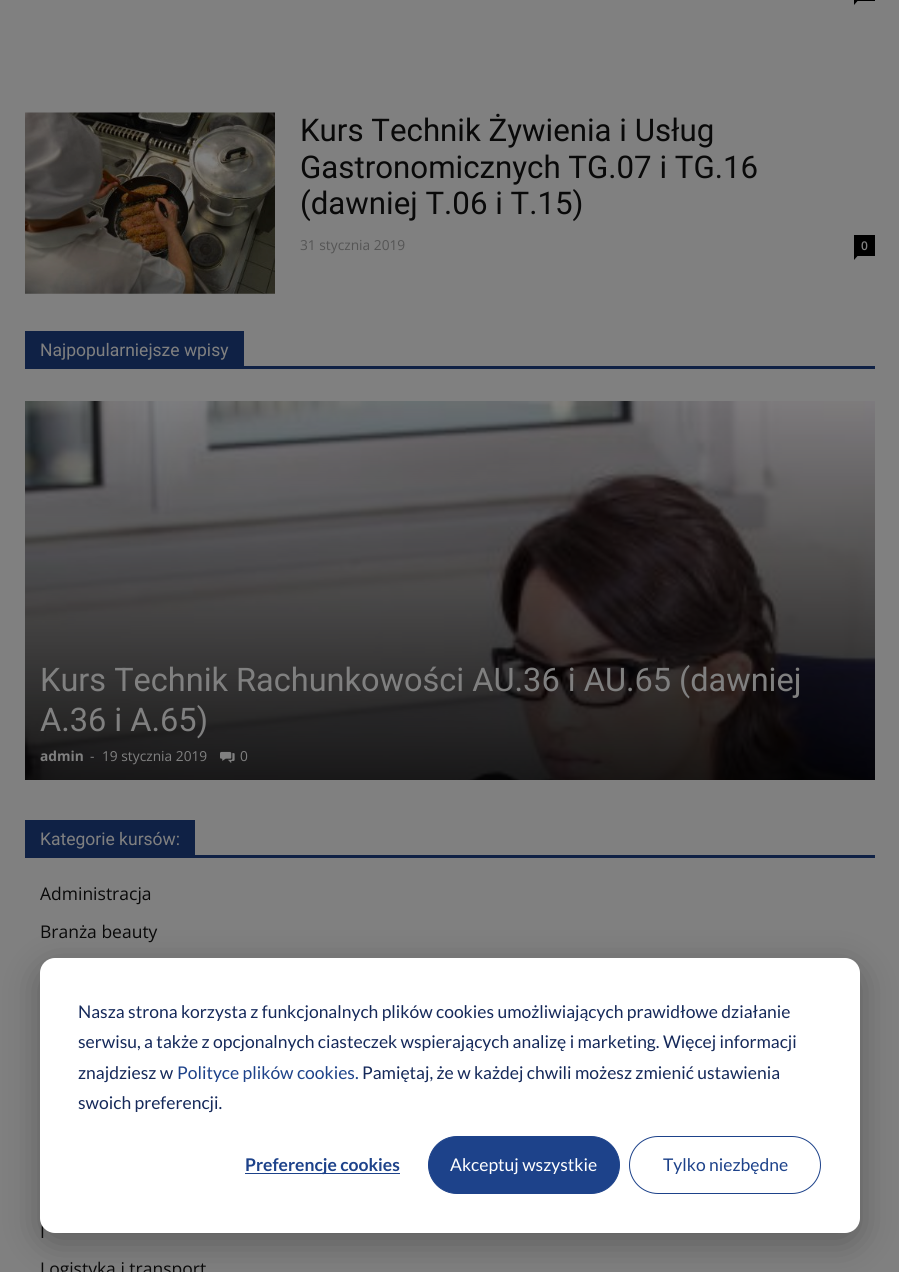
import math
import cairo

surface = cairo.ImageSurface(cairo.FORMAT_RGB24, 899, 1272)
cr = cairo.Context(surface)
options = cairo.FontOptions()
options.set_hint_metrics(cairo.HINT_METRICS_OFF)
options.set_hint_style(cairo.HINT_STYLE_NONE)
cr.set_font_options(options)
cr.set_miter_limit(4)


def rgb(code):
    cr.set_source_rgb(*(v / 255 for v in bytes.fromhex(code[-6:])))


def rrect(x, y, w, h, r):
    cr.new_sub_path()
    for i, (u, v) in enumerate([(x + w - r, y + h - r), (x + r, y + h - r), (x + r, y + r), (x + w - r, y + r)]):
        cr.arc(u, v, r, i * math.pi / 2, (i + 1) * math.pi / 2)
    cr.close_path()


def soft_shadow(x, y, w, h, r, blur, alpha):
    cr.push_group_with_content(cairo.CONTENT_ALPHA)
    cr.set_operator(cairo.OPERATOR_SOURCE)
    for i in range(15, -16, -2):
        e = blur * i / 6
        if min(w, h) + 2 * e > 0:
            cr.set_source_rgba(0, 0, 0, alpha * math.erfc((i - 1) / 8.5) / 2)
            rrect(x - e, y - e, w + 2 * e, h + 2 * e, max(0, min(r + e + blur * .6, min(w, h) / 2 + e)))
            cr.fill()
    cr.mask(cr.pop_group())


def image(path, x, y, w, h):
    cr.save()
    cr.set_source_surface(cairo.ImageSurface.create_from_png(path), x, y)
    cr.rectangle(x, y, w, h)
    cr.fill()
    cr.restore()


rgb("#808080")
cr.paint()
rgb("#000000")
cr.rectangle(854, 0, 21, 1)
cr.fill()
cr.new_path()
cr.move_to(854, 1)
cr.line_to(857.5, 1)
cr.line_to(854, 5)
cr.close_path()
cr.fill()
image("img/1.png", 25, 112, 250, 182)
cr.rectangle(854, 235, 21, 21)
cr.fill()
cr.new_path()
cr.move_to(854, 256)
cr.line_to(857.5, 256)
cr.line_to(854, 260)
cr.close_path()
cr.fill()
rgb("#0f2145")
cr.rectangle(25, 366, 850, 3)
cr.fill()
cr.rectangle(25, 331, 219, 35)
cr.fill()
image("img/2.png", 25, 401, 850, 379)
image("img/3.png", 220, 751, 15, 12)
cr.rectangle(25, 855, 850, 3)
cr.fill()
cr.rectangle(25, 820, 170, 35)
cr.fill()
rgb("#000000")
soft_shadow(40, 968, 820, 275, 15, 17.5, 0.28)
cr.select_font_face("Roboto")
cr.set_font_size(31.25)
rgb("#090909")
for x, y, s in [
    (300, 141, "Kurs Technik Żywienia i Usług"),
    (300, 178, "Gastronomicznych TG.07 i TG.16"),
    (300, 214, "(dawniej T.06 i T.15)"),
]:
    cr.move_to(x, y)
    cr.show_text(s)
cr.select_font_face("Open Sans")
cr.set_font_size(13.75)
rgb("#555555")
cr.move_to(300, 250)
cr.show_text("31 stycznia 2019")
cr.select_font_face("Open Sans SemiBold")
cr.set_font_size(12)
rgb("#808080")
cr.move_to(861, 250)
cr.show_text("0")
cr.select_font_face("Roboto")
cr.set_font_size(17.5)
cr.move_to(40, 356)
cr.show_text("Najpopularniejsze wpisy")
cr.set_font_size(32.5)
cr.move_to(40, 691)
cr.show_text("Kurs Technik Rachunkowości AU.36 i AU.65 (dawniej")
cr.move_to(40, 731)
cr.show_text("A.36 i A.65)")
cr.select_font_face("Open Sans", cairo.FONT_SLANT_NORMAL, cairo.FONT_WEIGHT_BOLD)
cr.set_font_size(13.75)
cr.move_to(40, 761)
cr.show_text("admin")
cr.select_font_face("Open Sans")
for x, y, s in [
    (90, 761, "-"),
    (102, 761, "19 stycznia 2019"),
    (240, 761, "0"),
]:
    cr.move_to(x, y)
    cr.show_text(s)
cr.select_font_face("Roboto")
cr.set_font_size(17.5)
cr.move_to(40, 845)
cr.show_text("Kategorie kursów:")
cr.select_font_face("Open Sans")
rgb("#090909")
for x, y, s in [
    (40, 900, "Administracja"),
    (40, 938, "Branża beauty"),
    (40, 1238, "I"),
    (40, 1275, "Logistyka i transport"),
]:
    cr.move_to(x, y)
    cr.show_text(s)
rgb("#ffffff")
rrect(40, 958, 820, 275, 15)
cr.fill()
cr.select_font_face("Lato")
rgb("#15295a")
for x, y, s in [
    (78, 1018, "Nasza strona korzysta z funkcjonalnych plików cookies umożliwiających prawidłowe działanie"),
    (78, 1048, "serwisu, a także z opcjonalnych ciasteczek wspierających analizę i marketing. Więcej informacji"),
    (78, 1079, "znajdziesz w"),
]:
    cr.move_to(x, y)
    cr.show_text(s)
rgb("#1d428a")
cr.move_to(177, 1079)
cr.show_text("Polityce plików cookies.")
rgb("#15295a")
cr.move_to(362, 1079)
cr.show_text("Pamiętaj, że w każdej chwili możesz zmienić ustawienia")
cr.move_to(78, 1109)
cr.show_text("swoich preferencji.")
rgb("#1d428a")
cr.rectangle(245, 1173, 155, 1)
cr.fill()
cr.select_font_face("Lato", cairo.FONT_SLANT_NORMAL, cairo.FONT_WEIGHT_BOLD)
cr.move_to(245, 1171)
cr.show_text("Preferencje cookies")
rrect(428.5, 1136.5, 191, 57, 28.5)
cr.fill_preserve()
cr.set_line_width(1)
cr.stroke()
cr.select_font_face("Lato")
rgb("#ffffff")
cr.move_to(450, 1171)
cr.show_text("Akceptuj wszystkie")
rrect(629.5, 1136.5, 191, 57, 28.5)
rgb("#1d428a")
cr.stroke()
cr.move_to(663, 1171)
cr.show_text("Tylko niezbędne")
surface.write_to_png("page.png")
